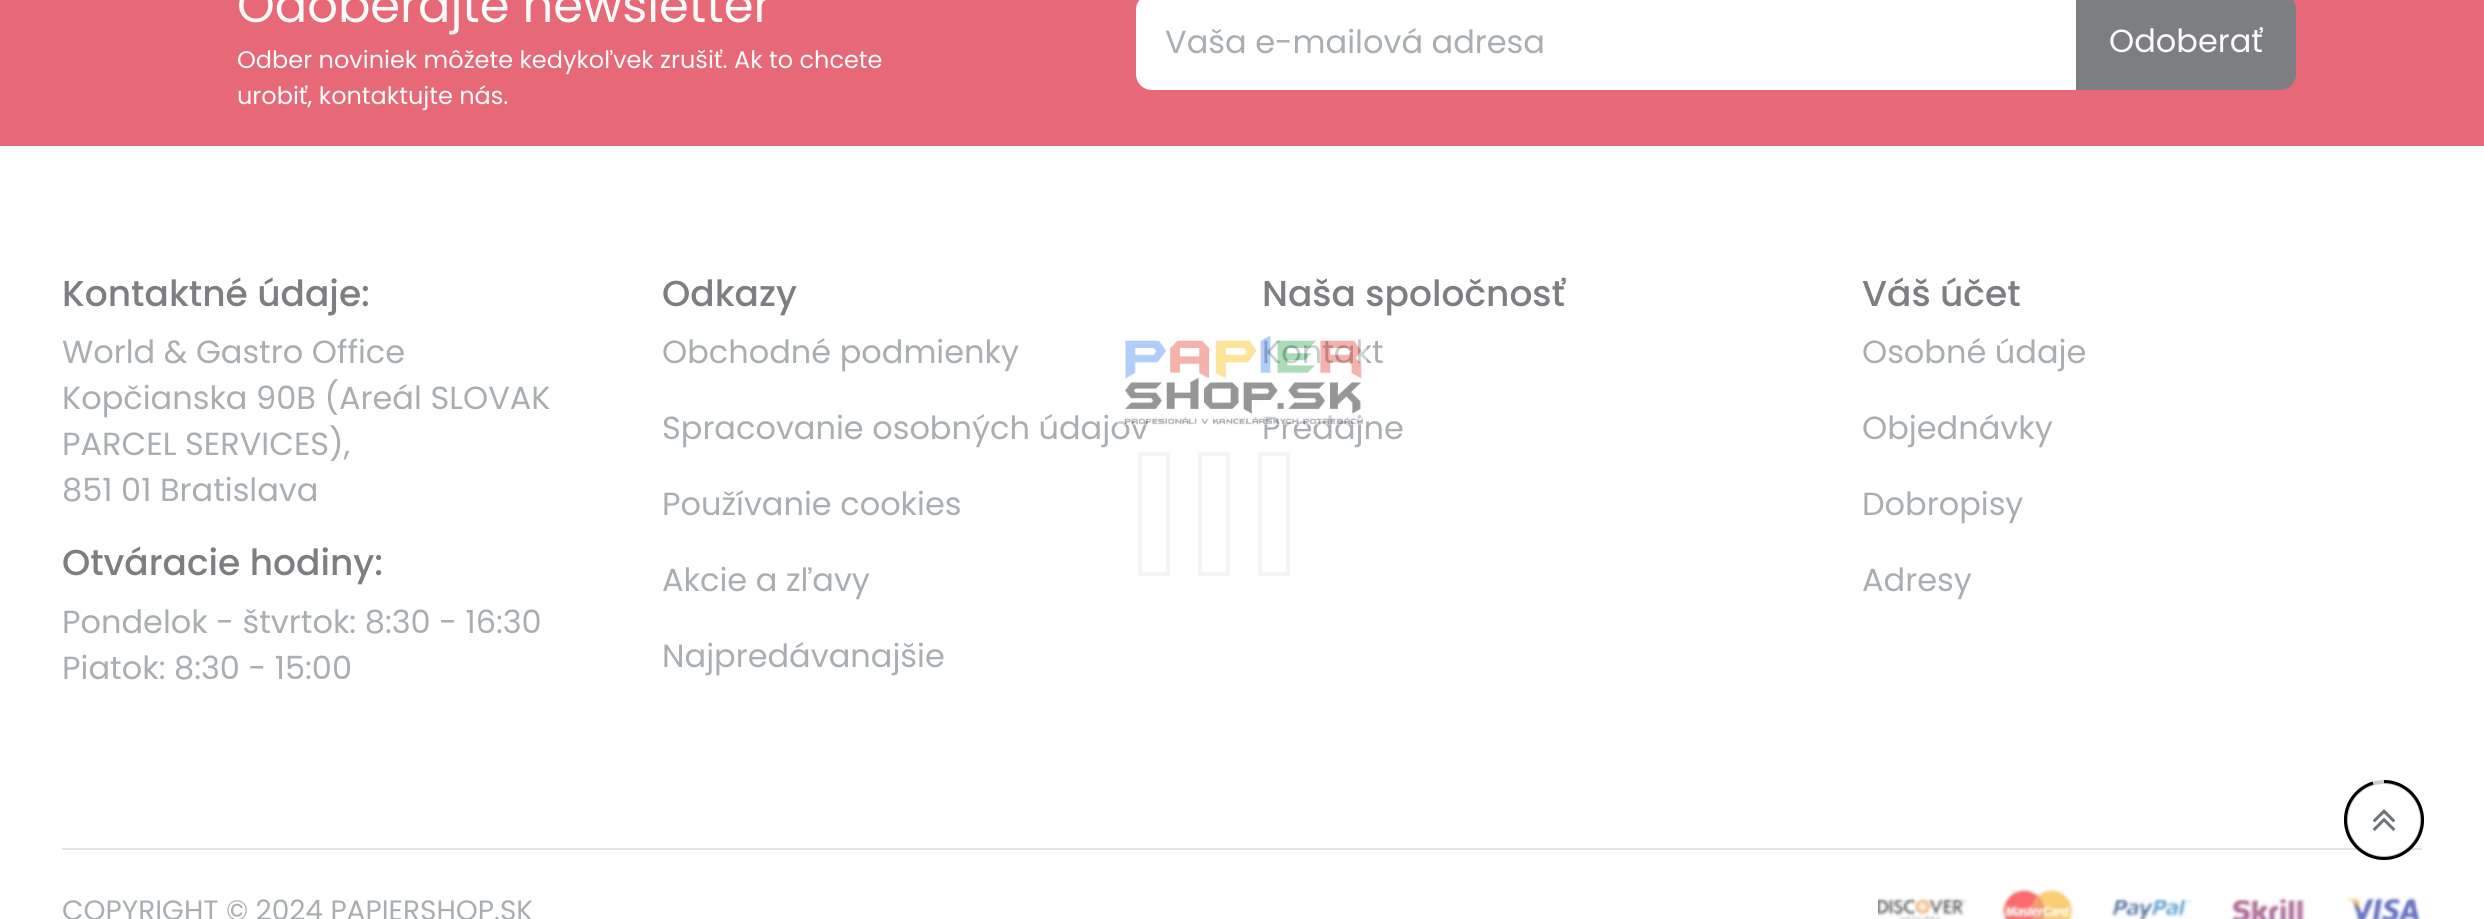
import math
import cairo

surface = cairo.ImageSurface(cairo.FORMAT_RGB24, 2484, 919)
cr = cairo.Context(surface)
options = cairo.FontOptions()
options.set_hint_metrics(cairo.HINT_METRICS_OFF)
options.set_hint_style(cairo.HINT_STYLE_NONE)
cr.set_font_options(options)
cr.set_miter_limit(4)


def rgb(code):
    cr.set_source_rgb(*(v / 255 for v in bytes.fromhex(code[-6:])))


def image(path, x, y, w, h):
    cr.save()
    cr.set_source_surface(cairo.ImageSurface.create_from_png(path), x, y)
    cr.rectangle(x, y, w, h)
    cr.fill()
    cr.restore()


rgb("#ffffff")
cr.paint()
rgb("#e76977")
cr.rectangle(0, 0, 2484, 146)
cr.fill()
rgb("#ffffff")
cr.new_path()
cr.move_to(1152, -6)
cr.line_to(2076, -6)
cr.line_to(2076, 90)
cr.line_to(1152, 90)
cr.curve_to(1143, 90, 1136, 83, 1136, 74)
cr.line_to(1136, 10)
cr.curve_to(1136, 1, 1143, -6, 1152, -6)
cr.close_path()
cr.fill()
rgb("#7c7e81")
cr.new_path()
cr.move_to(2076, -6)
cr.line_to(2280, -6)
cr.curve_to(2289, -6, 2296, 1, 2296, 10)
cr.line_to(2296, 74)
cr.curve_to(2296, 83, 2289, 90, 2280, 90)
cr.line_to(2076, 90)
cr.close_path()
cr.fill()
rgb("#e2e6e9")
cr.rectangle(62, 848, 2360, 2)
cr.fill()
image("img/1.png", 1878, 887, 544, 32)
rgb("#ffffff")
cr.arc(2384, 820, 40, 0, 2 * math.pi)
cr.fill()
cr.arc(2384, 820, 38, 0, 2 * math.pi)
cr.set_source_rgba(0, 0, 0, 0.2)
cr.set_line_width(4)
cr.stroke()
cr.new_path()
cr.move_to(2384, 781.5)
cr.curve_to(2405, 781.5, 2422.5, 799, 2422.5, 820)
cr.curve_to(2422.5, 841, 2405, 858.5, 2384, 858.5)
cr.curve_to(2363, 858.5, 2345.5, 841, 2345.5, 820)
cr.curve_to(2345.5, 802.5, 2357, 788, 2373, 783)
rgb("#000000")
cr.set_line_width(3.1)
cr.stroke()
image("img/2.png", 2372, 809, 24, 22)
cr.rectangle(1140, 454, 28, 120)
rgb("#f4f4f4")
cr.set_line_width(4)
cr.stroke()
cr.rectangle(1200, 454, 28, 120)
cr.stroke()
cr.rectangle(1260, 454, 28, 120)
cr.stroke()
cr.select_font_face("Poppins")
cr.set_font_size(48)
rgb("#fbfbfc")
cr.move_to(237, 22)
cr.show_text("Odoberajte newsletter")
cr.set_font_size(24)
cr.move_to(237, 68)
cr.show_text("Odber noviniek môžete kedykoľvek zrušiť. Ak to chcete")
cr.move_to(237, 104)
cr.show_text("urobiť, kontaktujte nás.")
cr.set_font_size(32)
rgb("#a8aeb2")
cr.move_to(1165, 53)
cr.show_text("Vaša e-mailová adresa")
rgb("#fbfbfc")
cr.move_to(2109, 52)
cr.show_text("Odoberať")
cr.select_font_face("Poppins Medium")
cr.set_font_size(36)
rgb("#7c7e81")
cr.move_to(62, 306)
cr.show_text("Kontaktné údaje:")
cr.select_font_face("Poppins")
cr.set_font_size(32)
rgb("#a8aeb2")
for x, y, s in [
    (62, 363, "World & Gastro Office"),
    (62, 409, "Kopčianska 90B (Areál SLOVAK"),
    (62, 455, "PARCEL SERVICES),"),
    (62, 501, "851 01 Bratislava"),
]:
    cr.move_to(x, y)
    cr.show_text(s)
cr.select_font_face("Poppins Medium")
cr.set_font_size(36)
rgb("#7c7e81")
cr.move_to(62, 575)
cr.show_text("Otváracie hodiny:")
cr.select_font_face("Poppins")
cr.set_font_size(32)
rgb("#a8aeb2")
cr.move_to(62, 633)
cr.show_text("Pondelok - štvrtok: 8:30 - 16:30")
cr.move_to(62, 679)
cr.show_text("Piatok: 8:30 - 15:00")
cr.select_font_face("Poppins Medium")
cr.set_font_size(36)
rgb("#7c7e81")
cr.move_to(662, 306)
cr.show_text("Odkazy")
cr.select_font_face("Poppins")
cr.set_font_size(32)
rgb("#a8aeb2")
for x, y, s in [
    (662, 363, "Obchodné podmienky"),
    (662, 439, "Spracovanie osobných údajov"),
    (662, 515, "Používanie cookies"),
    (662, 591, "Akcie a zľavy"),
    (662, 667, "Najpredávanajšie"),
]:
    cr.move_to(x, y)
    cr.show_text(s)
cr.select_font_face("Poppins Medium")
cr.set_font_size(36)
rgb("#7c7e81")
cr.move_to(1262, 306)
cr.show_text("Naša spoločnosť")
cr.select_font_face("Poppins")
cr.set_font_size(32)
rgb("#a8aeb2")
cr.move_to(1262, 363)
cr.show_text("Kontakt")
cr.move_to(1262, 439)
cr.show_text("Predajne")
cr.select_font_face("Poppins Medium")
cr.set_font_size(36)
rgb("#7c7e81")
cr.move_to(1862, 306)
cr.show_text("Váš účet")
cr.select_font_face("Poppins")
cr.set_font_size(32)
rgb("#a8aeb2")
for x, y, s in [
    (1862, 363, "Osobné údaje"),
    (1862, 439, "Objednávky"),
    (1862, 515, "Dobropisy"),
    (1862, 591, "Adresy"),
]:
    cr.move_to(x, y)
    cr.show_text(s)
cr.set_font_size(28)
cr.move_to(62, 920)
cr.show_text("COPYRIGHT © 2024 PAPIERSHOP.SK")
image("img/3.png", 1117, 335, 250, 90)
surface.write_to_png("page.png")
